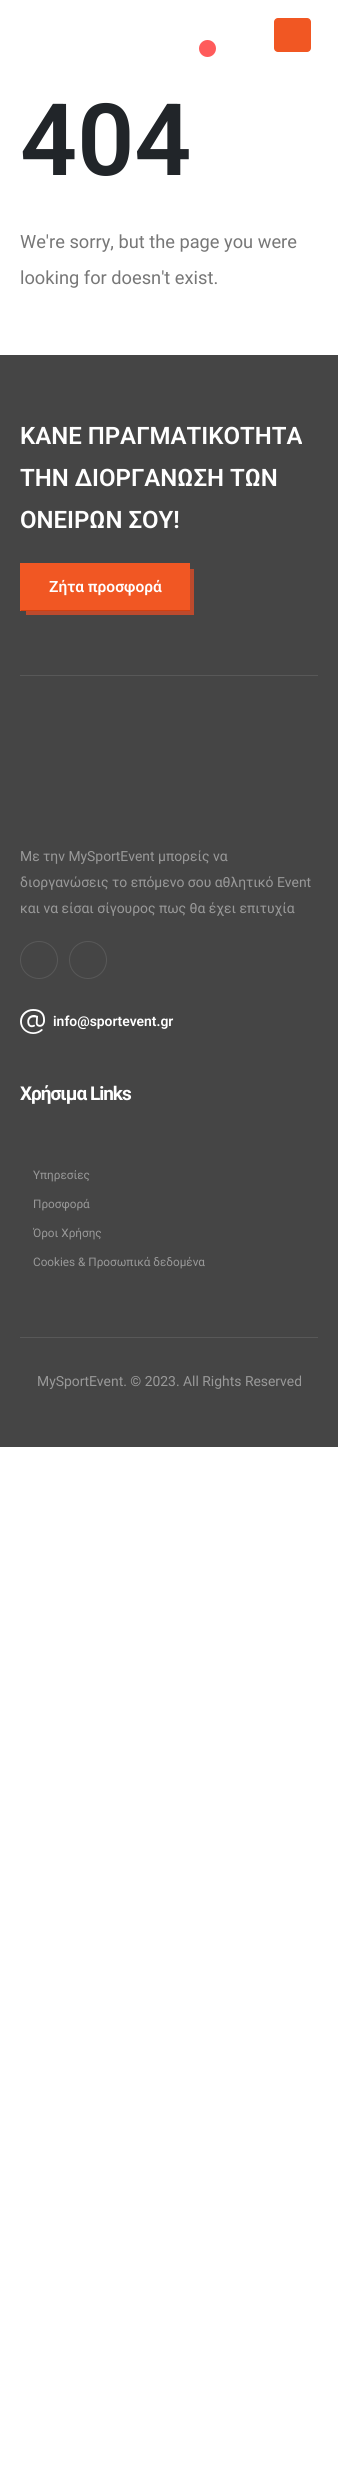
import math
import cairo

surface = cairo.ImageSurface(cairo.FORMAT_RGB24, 338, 2468)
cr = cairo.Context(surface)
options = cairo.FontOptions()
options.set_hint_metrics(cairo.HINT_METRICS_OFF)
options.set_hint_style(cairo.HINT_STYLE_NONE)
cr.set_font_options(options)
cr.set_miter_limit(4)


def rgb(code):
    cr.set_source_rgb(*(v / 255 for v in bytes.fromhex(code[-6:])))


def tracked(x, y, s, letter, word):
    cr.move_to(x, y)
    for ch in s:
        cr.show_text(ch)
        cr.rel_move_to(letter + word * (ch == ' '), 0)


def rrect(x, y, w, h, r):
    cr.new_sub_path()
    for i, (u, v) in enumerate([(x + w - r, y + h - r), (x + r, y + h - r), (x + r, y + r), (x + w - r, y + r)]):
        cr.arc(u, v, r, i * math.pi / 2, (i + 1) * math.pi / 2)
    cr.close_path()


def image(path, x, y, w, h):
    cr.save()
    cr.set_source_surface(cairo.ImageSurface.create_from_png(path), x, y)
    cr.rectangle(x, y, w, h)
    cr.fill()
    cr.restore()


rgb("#ffffff")
cr.paint()
rgb("#ff5b5b")
cr.arc(207.5, 48.5, 8.5, 0, 2 * math.pi)
cr.fill()
rgb("#f15723")
rrect(274, 18, 37, 34, 4)
cr.fill()
for x, y, w, h, color in [
    (0, 355, 338, 1092, "#454545"),
    (26, 569, 168, 46, "#bd4a2d"),
    (21, 563, 169, 47, "#f15723"),
    (20, 610, 170, 1, "#d4400e"),
    (20, 563, 1, 48, "#f15723"),
    (20, 675, 298, 1, "#585858"),
]:
    rgb(color)
    cr.rectangle(x, y, w, h)
    cr.fill()
cr.arc(39, 960, 18.5, 0, 2 * math.pi)
cr.set_line_width(1)
cr.stroke()
cr.arc(88, 960, 18.5, 0, 2 * math.pi)
cr.stroke()
image("img/1.png", 20, 1009, 25, 25)
cr.rectangle(20, 1337, 298, 1)
cr.fill()
cr.select_font_face("Roboto SemiBold")
cr.set_font_size(100)
rgb("#212529")
cr.move_to(20, 175)
cr.show_text("404")
cr.select_font_face("Roboto")
cr.set_font_size(18.25)
rgb("#777777")
cr.move_to(20, 248)
cr.show_text("We're sorry, but the page you were")
cr.move_to(20, 284)
cr.show_text("looking for doesn't exist.")
cr.select_font_face("Roboto SemiBold")
cr.set_font_size(24)
rgb("#ffffff")
for x, y, s in [
    (20, 444, "ΚΑΝΕ ΠΡΑΓΜΑΤΙΚΟΤΗΤΑ"),
    (20, 486, "ΤΗΝ ΔΙΟΡΓΑΝΩΣΗ ΤΩΝ"),
    (20, 528, "ΟΝΕΙΡΩΝ ΣΟΥ!"),
]:
    cr.move_to(x, y)
    cr.show_text(s)
cr.set_font_size(15.5)
cr.move_to(49, 592)
cr.show_text("Ζήτα προσφορά")
cr.select_font_face("Roboto")
cr.set_font_size(13.9)
rgb("#999999")
for x, y, s in [
    (20, 861, "Με την MySportEvent μπορείς να"),
    (20, 887, "διοργανώσεις το επόμενο σου αθλητικό Event"),
    (20, 913, "και να είσαι σίγουρος πως θα έχει επιτυχία"),
]:
    cr.move_to(x, y)
    cr.show_text(s)
cr.select_font_face("Roboto SemiBold")
rgb("#ffffff")
cr.move_to(53, 1026)
cr.show_text("info@sportevent.gr")
cr.select_font_face("Roboto", cairo.FONT_SLANT_NORMAL, cairo.FONT_WEIGHT_BOLD)
cr.set_font_size(19)
tracked(20, 1100, "Χρήσιμα Links", -1, 0)
cr.select_font_face("Roboto")
cr.set_font_size(11.75)
rgb("#999999")
for x, y, s in [
    (33, 1179, "Υπηρεσίες"),
    (33, 1208, "Προσφορά"),
    (33, 1237, "Όροι Χρήσης"),
    (33, 1266, "Cookies & Προσωπικά δεδομένα"),
]:
    cr.move_to(x, y)
    cr.show_text(s)
cr.set_font_size(13.9)
cr.move_to(37, 1386)
cr.show_text("MySportEvent. © 2023. All Rights Reserved")
surface.write_to_png("page.png")
